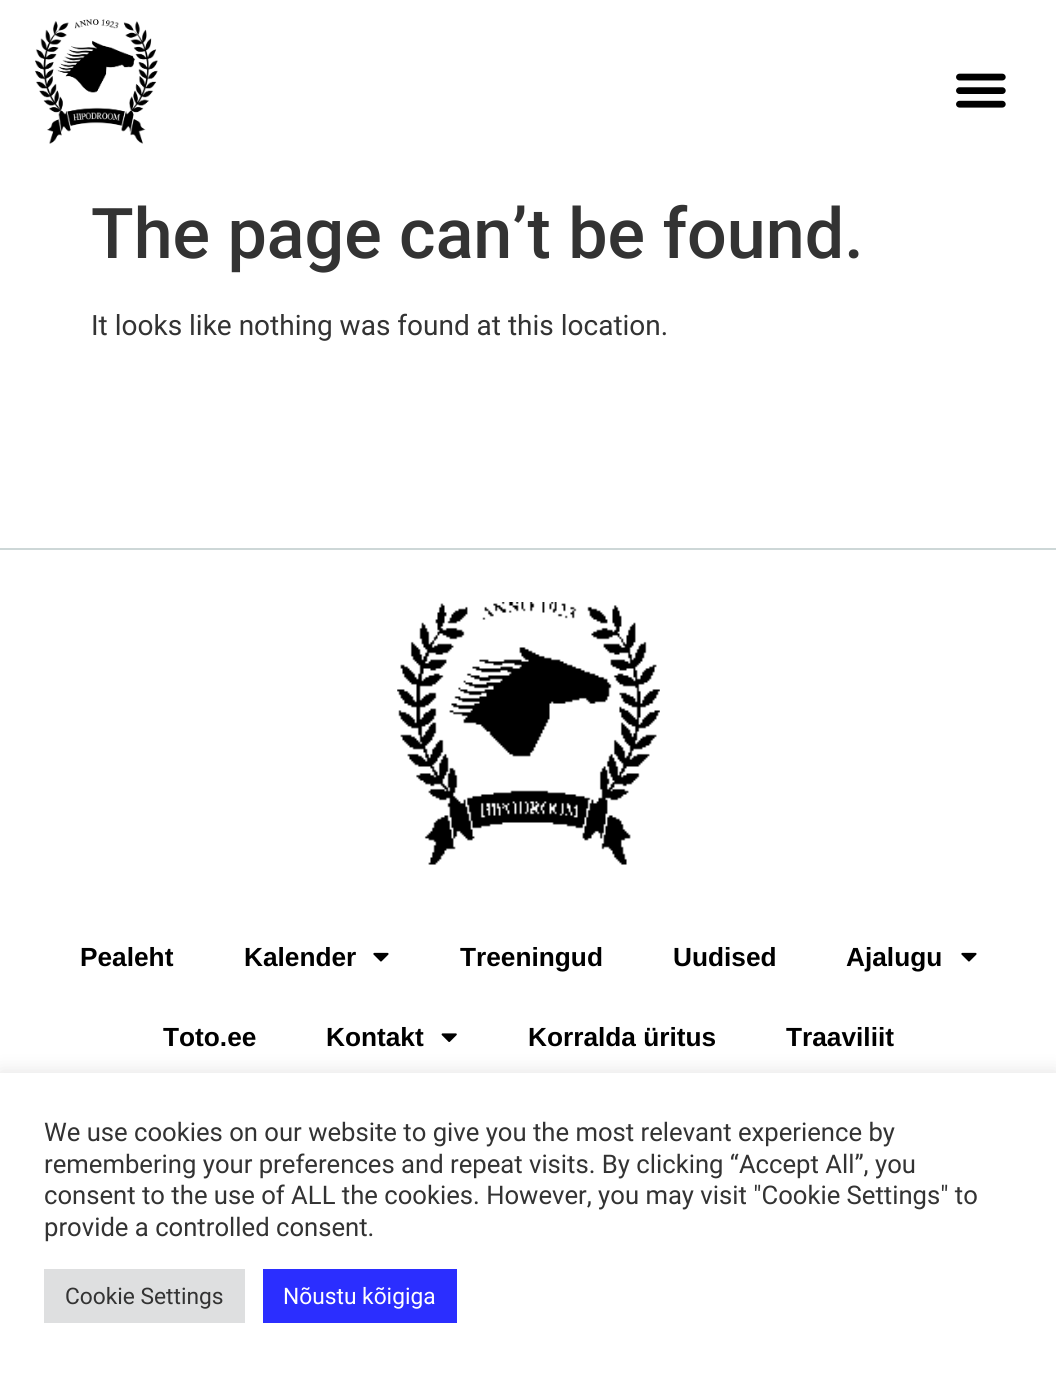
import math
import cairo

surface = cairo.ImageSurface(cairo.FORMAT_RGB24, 1056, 1375)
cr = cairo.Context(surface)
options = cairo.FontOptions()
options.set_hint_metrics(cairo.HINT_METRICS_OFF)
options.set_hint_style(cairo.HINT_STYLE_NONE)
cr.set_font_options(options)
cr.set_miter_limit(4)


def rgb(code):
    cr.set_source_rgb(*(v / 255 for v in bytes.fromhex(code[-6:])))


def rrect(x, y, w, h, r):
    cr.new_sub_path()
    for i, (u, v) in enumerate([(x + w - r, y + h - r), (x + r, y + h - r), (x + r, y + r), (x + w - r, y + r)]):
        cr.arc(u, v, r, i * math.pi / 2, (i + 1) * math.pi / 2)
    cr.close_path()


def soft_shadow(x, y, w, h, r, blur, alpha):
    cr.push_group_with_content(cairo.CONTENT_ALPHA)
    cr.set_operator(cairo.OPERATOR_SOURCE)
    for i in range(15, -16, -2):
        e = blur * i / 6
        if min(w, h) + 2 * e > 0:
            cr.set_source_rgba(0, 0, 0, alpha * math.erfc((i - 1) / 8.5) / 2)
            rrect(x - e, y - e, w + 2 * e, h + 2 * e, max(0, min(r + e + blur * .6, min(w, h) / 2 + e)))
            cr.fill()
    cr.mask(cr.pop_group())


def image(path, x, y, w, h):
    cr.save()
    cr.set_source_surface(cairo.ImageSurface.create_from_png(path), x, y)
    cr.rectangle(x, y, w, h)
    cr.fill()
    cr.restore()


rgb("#ffffff")
cr.paint()
image("img/1.png", 35, 19, 123, 125)
image("img/2.png", 956, 73, 50, 35)
rgb("#cdd7d7")
cr.rectangle(0, 548, 1056, 2)
cr.fill()
image("img/3.png", 397, 602, 263, 263)
image("img/4.png", 373, 952, 16, 10)
image("img/4.png", 961, 952, 16, 10)
image("img/5.png", 441, 1033, 16, 9)
rgb("#acabab")
soft_shadow(0, 1071, 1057, 303, 0, 9, 0.3)
for x, y, w, h, color in [
    (0, 1073, 1056, 302, "#ffffff"),
    (44, 1269, 201, 54, "#dedfe0"),
    (263, 1269, 194, 54, "#2b2eff"),
]:
    rgb(color)
    cr.rectangle(x, y, w, h)
    cr.fill()
cr.select_font_face("Roboto Medium")
cr.set_font_size(70)
rgb("#333333")
cr.move_to(91, 258)
cr.show_text("The page can’t be found.")
cr.select_font_face("Roboto")
cr.set_font_size(28)
cr.move_to(91, 335)
cr.show_text("It looks like nothing was found at this location.")
cr.select_font_face("Liberation Sans", cairo.FONT_SLANT_NORMAL, cairo.FONT_WEIGHT_BOLD)
cr.set_font_size(26.25)
rgb("#000000")
for x, y, s in [
    (80, 966, "Pealeht"),
    (244, 966, "Kalender"),
    (460, 966, "Treeningud"),
    (673, 966, "Uudised"),
    (846, 966, "Ajalugu"),
    (163, 1046, "Toto.ee"),
    (326, 1046, "Kontakt"),
    (528, 1046, "Korralda üritus"),
    (786, 1046, "Traaviliit"),
]:
    cr.move_to(x, y)
    cr.show_text(s)
cr.select_font_face("Roboto")
cr.set_font_size(25.65)
rgb("#333333")
for x, y, s in [
    (44, 1141, "We use cookies on our website to give you the most relevant experience by"),
    (44, 1173, "remembering your preferences and repeat visits. By clicking “Accept All”, you"),
    (44, 1204, "consent to the use of ALL the cookies. However, you may visit \"Cookie Settings\" to"),
    (44, 1236, "provide a controlled consent."),
]:
    cr.move_to(x, y)
    cr.show_text(s)
cr.set_font_size(22.75)
cr.move_to(65, 1304)
cr.show_text("Cookie Settings")
rgb("#ffffff")
cr.move_to(283, 1304)
cr.show_text("Nõustu kõigiga")
surface.write_to_png("page.png")
